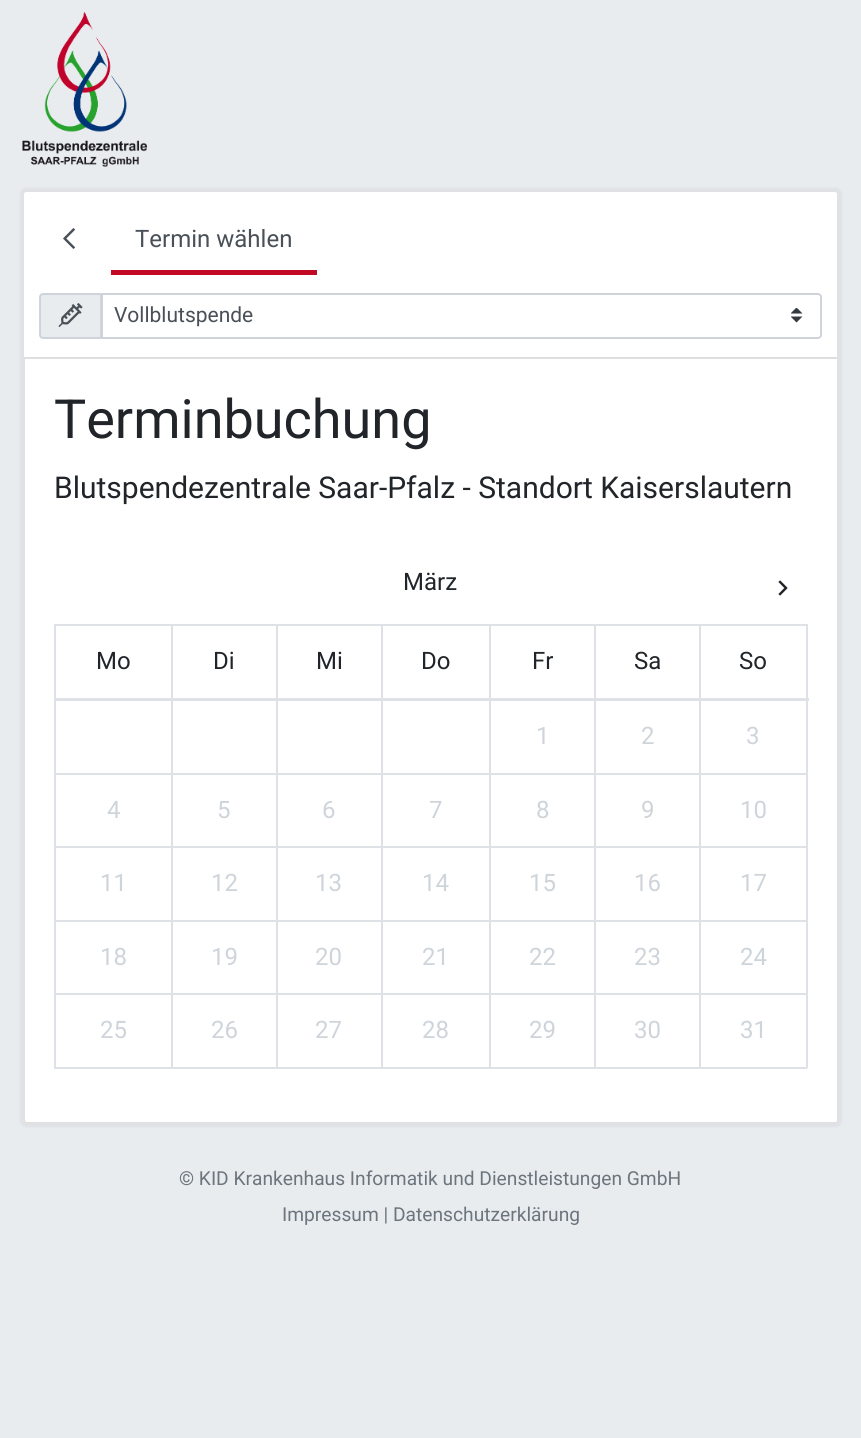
import math
import cairo

surface = cairo.ImageSurface(cairo.FORMAT_RGB24, 861, 1438)
cr = cairo.Context(surface)
options = cairo.FontOptions()
options.set_hint_metrics(cairo.HINT_METRICS_OFF)
options.set_hint_style(cairo.HINT_STYLE_NONE)
cr.set_font_options(options)
cr.set_miter_limit(4)


def rgb(code):
    cr.set_source_rgb(*(v / 255 for v in bytes.fromhex(code[-6:])))


def rrect(x, y, w, h, r):
    cr.new_sub_path()
    for i, (u, v) in enumerate([(x + w - r, y + h - r), (x + r, y + h - r), (x + r, y + r), (x + w - r, y + r)]):
        cr.arc(u, v, r, i * math.pi / 2, (i + 1) * math.pi / 2)
    cr.close_path()


def soft_shadow(x, y, w, h, r, blur, alpha):
    cr.push_group_with_content(cairo.CONTENT_ALPHA)
    cr.set_operator(cairo.OPERATOR_SOURCE)
    for i in range(15, -16, -2):
        e = blur * i / 6
        if min(w, h) + 2 * e > 0:
            cr.set_source_rgba(0, 0, 0, alpha * math.erfc((i - 1) / 8.5) / 2)
            rrect(x - e, y - e, w + 2 * e, h + 2 * e, max(0, min(r + e + blur * .6, min(w, h) / 2 + e)))
            cr.fill()
    cr.mask(cr.pop_group())


def image(path, x, y, w, h):
    cr.save()
    cr.set_source_surface(cairo.ImageSurface.create_from_png(path), x, y)
    cr.rectangle(x, y, w, h)
    cr.fill()
    cr.restore()


rgb("#e9ecef")
cr.paint()
image("img/1.png", 22, 12, 125, 155)
rgb("#dee2e6")
soft_shadow(20, 188, 822, 939, 6, 1, 1)
rgb("#ffffff")
rrect(23, 191, 816, 933, 4)
cr.fill()
rrect(24, 192, 814, 931, 3)
cr.set_source_rgba(0, 0, 0, 0.12)
cr.stroke()
rgb("#ffffff")
cr.new_path()
cr.move_to(26, 192)
cr.line_to(835, 192)
cr.curve_to(836, 192, 837, 193, 837, 194)
cr.line_to(837, 359)
cr.line_to(24, 359)
cr.line_to(24, 194)
cr.curve_to(24, 193, 25, 192, 26, 192)
cr.close_path()
cr.fill()
rgb("#dfdfdf")
cr.rectangle(24, 357, 813, 2)
cr.fill()
image("img/2.png", 63, 228, 12, 21)
rgb("#c10b25")
cr.rectangle(111, 270, 206, 5)
cr.fill()
rgb("#e9ecef")
cr.new_path()
cr.move_to(43, 294)
cr.line_to(101, 294)
cr.line_to(101, 338)
cr.line_to(43, 338)
cr.curve_to(41.5, 338, 40, 336.5, 40, 335)
cr.line_to(40, 297)
cr.curve_to(40, 295.5, 41.5, 294, 43, 294)
cr.close_path()
cr.fill_preserve()
rgb("#ced4da")
cr.stroke()
image("img/3.png", 58, 303, 25, 24)
rgb("#ffffff")
cr.new_path()
cr.move_to(101, 293)
cr.line_to(818, 293)
cr.curve_to(820, 293, 822, 295, 822, 297)
cr.line_to(822, 335)
cr.curve_to(822, 337, 820, 339, 818, 339)
cr.line_to(101, 339)
cr.close_path()
cr.fill()
image("img/4.png", 791, 308, 12, 15)
cr.new_path()
cr.move_to(102, 294)
cr.line_to(818, 294)
cr.curve_to(819.5, 294, 821, 295.5, 821, 297)
cr.line_to(821, 335)
cr.curve_to(821, 336.5, 819.5, 338, 818, 338)
cr.line_to(102, 338)
cr.close_path()
rgb("#ced4da")
cr.stroke()
image("img/5.png", 778, 580, 10, 16)
for x, y, w, h, color in [
    (54, 624, 753, 2, "#dee2e6"),
    (806, 624, 2, 444, "#dee2e6"),
    (54, 1067, 753, 2, "#dee2e6"),
    (54, 624, 2, 444, "#dee2e6"),
    (699, 773, 108, 2, "#dee2e6"),
    (699, 846, 108, 2, "#dee2e6"),
    (699, 920, 108, 2, "#dee2e6"),
    (699, 993, 108, 2, "#dee2e6"),
    (699, 993, 2, 75, "#dee2e6"),
    (594, 993, 107, 2, "#dee2e6"),
    (699, 920, 2, 75, "#dee2e6"),
    (594, 920, 107, 2, "#dee2e6"),
    (699, 846, 2, 75, "#dee2e6"),
    (594, 846, 107, 2, "#dee2e6"),
    (699, 773, 2, 75, "#dee2e6"),
    (594, 773, 107, 2, "#dee2e6"),
    (594, 993, 2, 75, "#dee2e6"),
    (489, 993, 107, 2, "#dee2e6"),
    (594, 920, 2, 75, "#dee2e6"),
    (489, 920, 107, 2, "#dee2e6"),
    (594, 846, 2, 75, "#dee2e6"),
    (489, 846, 107, 2, "#dee2e6"),
    (594, 773, 2, 75, "#dee2e6"),
    (489, 773, 107, 2, "#dee2e6"),
    (489, 993, 2, 75, "#dee2e6"),
    (381, 993, 110, 2, "#dee2e6"),
    (489, 920, 2, 75, "#dee2e6"),
    (381, 920, 110, 2, "#dee2e6"),
    (489, 846, 2, 75, "#dee2e6"),
    (381, 846, 110, 2, "#dee2e6"),
    (489, 773, 2, 75, "#dee2e6"),
    (381, 773, 110, 2, "#dee2e6"),
    (381, 993, 2, 75, "#dee2e6"),
    (276, 993, 107, 2, "#dee2e6"),
    (381, 920, 2, 75, "#dee2e6"),
    (276, 920, 107, 2, "#dee2e6"),
    (381, 846, 2, 75, "#dee2e6"),
    (276, 846, 107, 2, "#dee2e6"),
    (381, 773, 2, 75, "#dee2e6"),
    (276, 773, 107, 2, "#dee2e6"),
    (276, 993, 2, 75, "#dee2e6"),
    (171, 993, 107, 2, "#dee2e6"),
    (276, 920, 2, 75, "#dee2e6"),
    (171, 920, 107, 2, "#dee2e6"),
    (276, 846, 2, 75, "#dee2e6"),
    (171, 846, 107, 2, "#dee2e6"),
    (276, 773, 2, 75, "#dee2e6"),
    (171, 773, 107, 2, "#dee2e6"),
    (171, 993, 2, 75, "#dee2e6"),
    (54, 993, 119, 2, "#dee2e6"),
    (171, 920, 2, 75, "#dee2e6"),
    (54, 920, 119, 2, "#dee2e6"),
    (171, 846, 2, 75, "#dee2e6"),
    (54, 846, 119, 2, "#dee2e6"),
    (171, 773, 2, 75, "#dee2e6"),
    (54, 773, 119, 2, "#dee2e6"),
    (171, 624, 2, 150, "#dee2e6"),
    (276, 624, 2, 150, "#dee2e6"),
    (381, 624, 2, 150, "#dee2e6"),
    (489, 624, 2, 150, "#dee2e6"),
    (594, 624, 2, 150, "#dee2e6"),
    (699, 624, 2, 150, "#dee2e6"),
    (54, 698, 755, 3, "#dee2e6"),
]:
    rgb(color)
    cr.rectangle(x, y, w, h)
    cr.fill()
cr.select_font_face("Roboto")
cr.set_font_size(24)
rgb("#495057")
cr.move_to(135, 247)
cr.show_text("Termin wählen")
cr.set_font_size(21)
cr.move_to(114, 322)
cr.show_text("Vollblutspende")
cr.set_font_size(54)
rgb("#212529")
cr.move_to(54, 438)
cr.show_text("Terminbuchung")
cr.set_font_size(30)
cr.move_to(54, 498)
cr.show_text("Blutspendezentrale Saar-Pfalz - Standort Kaiserslautern")
cr.set_font_size(24)
for x, y, s in [
    (403, 590, "März"),
    (96, 669, "Mo"),
    (213, 669, "Di"),
    (316, 669, "Mi"),
    (421, 669, "Do"),
    (532, 669, "Fr"),
    (634, 669, "Sa"),
    (739, 669, "So"),
]:
    cr.move_to(x, y)
    cr.show_text(s)
rgb("#ced4da")
for x, y, s in [
    (536, 744, "1"),
    (641, 744, "2"),
    (746, 744, "3"),
    (107, 818, "4"),
    (217, 818, "5"),
    (322, 818, "6"),
    (429, 818, "7"),
    (536, 818, "8"),
    (641, 818, "9"),
    (740, 818, "10"),
    (100, 891, "11"),
    (211, 891, "12"),
    (315, 891, "13"),
    (422, 891, "14"),
    (529, 891, "15"),
    (634, 891, "16"),
    (740, 891, "17"),
    (100, 965, "18"),
    (211, 965, "19"),
    (315, 965, "20"),
    (422, 965, "21"),
    (529, 965, "22"),
    (634, 965, "23"),
    (740, 965, "24"),
    (100, 1038, "25"),
    (211, 1038, "26"),
    (315, 1038, "27"),
    (422, 1038, "28"),
    (529, 1038, "29"),
    (634, 1038, "30"),
    (740, 1038, "31"),
]:
    cr.move_to(x, y)
    cr.show_text(s)
cr.set_font_size(19.2)
rgb("#6c757d")
cr.move_to(179, 1185)
cr.show_text("© KID Krankenhaus Informatik und Dienstleistungen GmbH")
cr.move_to(282, 1221)
cr.show_text("Impressum | Datenschutzerklärung")
surface.write_to_png("page.png")
